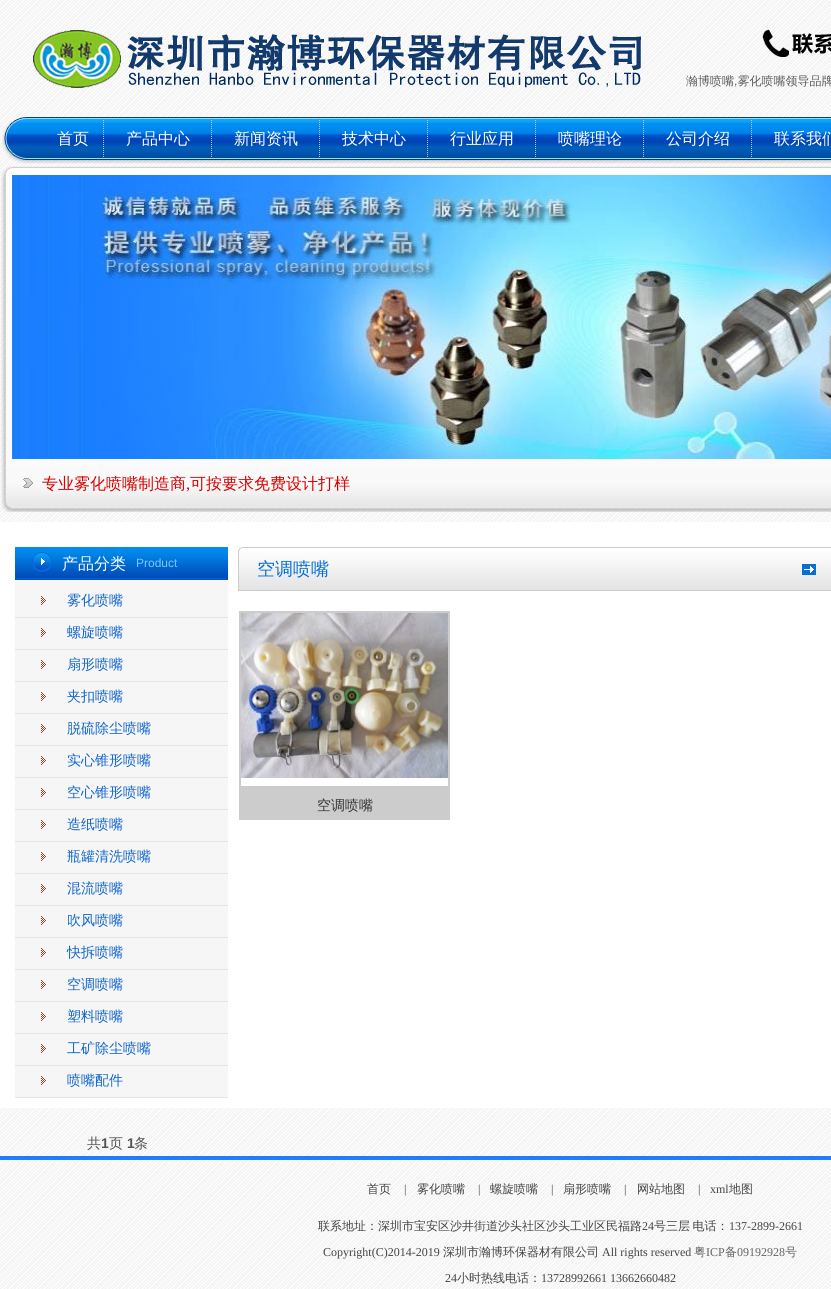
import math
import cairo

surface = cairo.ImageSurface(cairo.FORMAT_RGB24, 831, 1289)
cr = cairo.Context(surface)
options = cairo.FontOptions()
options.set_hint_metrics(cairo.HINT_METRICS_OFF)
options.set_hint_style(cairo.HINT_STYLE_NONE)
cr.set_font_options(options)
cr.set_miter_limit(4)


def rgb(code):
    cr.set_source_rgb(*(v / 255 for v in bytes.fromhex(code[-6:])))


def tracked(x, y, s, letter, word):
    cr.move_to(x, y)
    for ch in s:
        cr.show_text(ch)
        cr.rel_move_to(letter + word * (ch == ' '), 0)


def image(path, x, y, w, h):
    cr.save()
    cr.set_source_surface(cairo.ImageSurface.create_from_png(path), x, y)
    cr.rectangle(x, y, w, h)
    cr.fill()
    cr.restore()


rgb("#ffffff")
cr.paint()
image("img/1.png", 0, 0, 831, 1289)
image("img/2.png", 33, 30, 608, 58)
image("img/3.png", 762, 29, 69, 28)
image("img/4.png", 2, 117, 829, 47)
cr.new_path()
cr.move_to(103.5, 118)
cr.line_to(103.5, 157)
rgb("#c3c3c3")
cr.set_line_width(1)
cr.set_dash([1, 1])
cr.stroke()
cr.new_path()
cr.move_to(211.5, 118)
cr.line_to(211.5, 157)
cr.stroke()
cr.new_path()
cr.move_to(319.5, 118)
cr.line_to(319.5, 157)
cr.stroke()
cr.new_path()
cr.move_to(427.5, 118)
cr.line_to(427.5, 157)
cr.stroke()
cr.new_path()
cr.move_to(535.5, 118)
cr.line_to(535.5, 157)
cr.stroke()
cr.new_path()
cr.move_to(643.5, 118)
cr.line_to(643.5, 157)
cr.stroke()
cr.new_path()
cr.move_to(751.5, 118)
cr.line_to(751.5, 157)
cr.stroke()
image("img/5.png", 1, 166, 830, 346)
image("img/6.png", 12, 175, 819, 284)
rgb("#ffffff")
cr.rectangle(0, 522, 831, 586)
cr.fill()
rgb("#f6f6f6")
cr.rectangle(15, 580, 213, 517)
cr.fill()
image("img/7.png", 15, 547, 213, 33)
rgb("#e5e5e5")
cr.rectangle(15, 617, 213, 1)
cr.fill()
image("img/8.png", 41, 596, 5, 9)
cr.rectangle(15, 649, 213, 1)
cr.fill()
image("img/8.png", 41, 628, 5, 9)
cr.rectangle(15, 681, 213, 1)
cr.fill()
image("img/8.png", 41, 660, 5, 9)
cr.rectangle(15, 713, 213, 1)
cr.fill()
image("img/8.png", 41, 692, 5, 9)
cr.rectangle(15, 745, 213, 1)
cr.fill()
image("img/8.png", 41, 724, 5, 9)
cr.rectangle(15, 777, 213, 1)
cr.fill()
image("img/8.png", 41, 756, 5, 9)
cr.rectangle(15, 809, 213, 1)
cr.fill()
image("img/8.png", 41, 788, 5, 9)
cr.rectangle(15, 841, 213, 1)
cr.fill()
image("img/8.png", 41, 820, 5, 9)
cr.rectangle(15, 873, 213, 1)
cr.fill()
image("img/8.png", 41, 852, 5, 9)
cr.rectangle(15, 905, 213, 1)
cr.fill()
image("img/8.png", 41, 884, 5, 9)
cr.rectangle(15, 937, 213, 1)
cr.fill()
image("img/8.png", 41, 916, 5, 9)
cr.rectangle(15, 969, 213, 1)
cr.fill()
image("img/8.png", 41, 948, 5, 9)
cr.rectangle(15, 1001, 213, 1)
cr.fill()
image("img/8.png", 41, 980, 5, 9)
cr.rectangle(15, 1033, 213, 1)
cr.fill()
image("img/8.png", 41, 1012, 5, 9)
cr.rectangle(15, 1065, 213, 1)
cr.fill()
image("img/8.png", 41, 1044, 5, 9)
cr.rectangle(15, 1097, 213, 1)
cr.fill()
image("img/8.png", 41, 1076, 5, 9)
image("img/9.png", 238, 547, 593, 44)
image("img/10.png", 802, 564, 14, 11)
cr.rectangle(240, 612, 209, 207)
rgb("#cccccc")
cr.set_line_width(2)
cr.set_dash([])
cr.stroke()
image("img/11.png", 241, 613, 207, 165)
cr.rectangle(241, 786, 207, 32)
cr.fill()
rgb("#1b7efe")
cr.rectangle(0, 1156, 831, 4)
cr.fill()
cr.select_font_face("WenQuanYi Zen Hei Medium")
cr.set_font_size(12)
rgb("#5b5b5b")
cr.move_to(686, 85)
cr.show_text("瀚博喷嘴 雾化喷嘴领导品牌")
cr.select_font_face("Liberation Sans")
cr.move_to(734, 85)
cr.show_text(",")
cr.select_font_face("WenQuanYi Zen Hei Medium")
cr.set_font_size(16)
rgb("#ffffff")
for x, y, s in [
    (57, 144, "首页"),
    (126, 144, "产品中心"),
    (234, 144, "新闻资讯"),
    (342, 144, "技术中心"),
    (450, 144, "行业应用"),
    (558, 144, "喷嘴理论"),
    (666, 144, "公司介绍"),
    (774, 144, "联系我们"),
]:
    cr.move_to(x, y)
    cr.show_text(s)
rgb("#da0000")
cr.move_to(42, 489)
cr.show_text("专业雾化喷嘴制造商")
cr.select_font_face("Liberation Serif")
cr.move_to(186, 489)
cr.show_text(",")
cr.select_font_face("WenQuanYi Zen Hei Medium")
cr.move_to(190, 489)
cr.show_text("可按要求免费设计打样")
rgb("#ffffff")
cr.move_to(62, 569)
cr.show_text("产品分类")
cr.select_font_face("Liberation Sans")
cr.set_font_size(12)
rgb("#7ac8ff")
cr.move_to(136, 567)
cr.show_text("Product")
cr.select_font_face("WenQuanYi Zen Hei Medium")
cr.set_font_size(14)
rgb("#1265cc")
for x, y, s in [
    (67, 605, "雾化喷嘴"),
    (67, 637, "螺旋喷嘴"),
    (67, 669, "扇形喷嘴"),
    (67, 701, "夹扣喷嘴"),
    (67, 733, "脱硫除尘喷嘴"),
    (67, 765, "实心锥形喷嘴"),
    (67, 797, "空心锥形喷嘴"),
    (67, 829, "造纸喷嘴"),
    (67, 861, "瓶罐清洗喷嘴"),
    (67, 893, "混流喷嘴"),
    (67, 925, "吹风喷嘴"),
    (67, 957, "快拆喷嘴"),
    (67, 989, "空调喷嘴"),
    (67, 1021, "塑料喷嘴"),
    (67, 1053, "工矿除尘喷嘴"),
    (67, 1085, "喷嘴配件"),
]:
    cr.move_to(x, y)
    cr.show_text(s)
cr.set_font_size(18)
rgb("#056fd8")
cr.move_to(257, 575)
cr.show_text("空调喷嘴")
cr.set_font_size(14)
rgb("#343434")
cr.move_to(317, 810)
cr.show_text("空调喷嘴")
rgb("#535353")
cr.move_to(87, 1148)
cr.show_text("共")
cr.select_font_face("Liberation Sans", cairo.FONT_SLANT_NORMAL, cairo.FONT_WEIGHT_BOLD)
cr.move_to(101, 1148)
cr.show_text("1")
cr.select_font_face("WenQuanYi Zen Hei Medium")
cr.move_to(109, 1148)
cr.show_text("页")
cr.select_font_face("Liberation Sans", cairo.FONT_SLANT_NORMAL, cairo.FONT_WEIGHT_BOLD)
cr.move_to(127, 1148)
cr.show_text("1")
cr.select_font_face("WenQuanYi Zen Hei Medium")
cr.move_to(134, 1148)
cr.show_text("条")
cr.set_font_size(12)
rgb("#444444")
cr.move_to(367, 1193)
cr.show_text("首页")
cr.select_font_face("Liberation Serif")
cr.move_to(404, 1193)
cr.show_text("|")
cr.select_font_face("WenQuanYi Zen Hei Medium")
cr.move_to(417, 1193)
cr.show_text("雾化喷嘴")
cr.select_font_face("Liberation Serif")
cr.move_to(478, 1193)
cr.show_text("|")
cr.select_font_face("WenQuanYi Zen Hei Medium")
cr.move_to(490, 1193)
cr.show_text("螺旋喷嘴")
cr.select_font_face("Liberation Serif")
cr.move_to(551, 1193)
cr.show_text("|")
cr.select_font_face("WenQuanYi Zen Hei Medium")
cr.move_to(563, 1193)
cr.show_text("扇形喷嘴")
cr.select_font_face("Liberation Serif")
cr.move_to(624, 1193)
cr.show_text("|")
cr.select_font_face("WenQuanYi Zen Hei Medium")
cr.move_to(637, 1193)
cr.show_text("网站地图")
cr.select_font_face("Liberation Serif")
cr.move_to(698, 1193)
cr.show_text("|")
cr.move_to(710, 1193)
cr.show_text("xml")
cr.select_font_face("WenQuanYi Zen Hei Medium")
cr.move_to(729, 1193)
cr.show_text("地图")
cr.move_to(318, 1230)
cr.show_text("联系地址：深圳市宝安区沙井街道沙头社区沙头工业区民福路")
cr.select_font_face("Liberation Serif")
cr.move_to(642, 1230)
cr.show_text("24")
cr.select_font_face("WenQuanYi Zen Hei Medium")
tracked(654, 1230, "号三层 电话：", 0, -1)
cr.select_font_face("Liberation Serif")
cr.move_to(729, 1230)
cr.show_text("137-2899-2661")
cr.move_to(323, 1256)
cr.show_text("Copyright(C)2014-2019")
cr.select_font_face("WenQuanYi Zen Hei Medium")
cr.move_to(443, 1256)
cr.show_text("深圳市瀚博环保器材有限公司")
cr.select_font_face("Liberation Serif")
cr.move_to(602, 1256)
cr.show_text("All rights reserved")
cr.select_font_face("WenQuanYi Zen Hei Medium")
rgb("#656565")
cr.move_to(694, 1256)
cr.show_text("粤")
cr.select_font_face("Liberation Serif")
cr.move_to(706, 1256)
cr.show_text("ICP")
cr.select_font_face("WenQuanYi Zen Hei Medium")
cr.move_to(725, 1256)
cr.show_text("备")
cr.select_font_face("Liberation Serif")
cr.move_to(737, 1256)
cr.show_text("09192928")
cr.select_font_face("WenQuanYi Zen Hei Medium")
cr.move_to(785, 1256)
cr.show_text("号")
cr.select_font_face("Liberation Serif")
rgb("#444444")
cr.move_to(445, 1282)
cr.show_text("24")
cr.select_font_face("WenQuanYi Zen Hei Medium")
cr.move_to(457, 1282)
cr.show_text("小时热线电话：")
cr.select_font_face("Liberation Serif")
cr.move_to(541, 1282)
cr.show_text("13728992661 13662660482")
surface.write_to_png("page.png")
